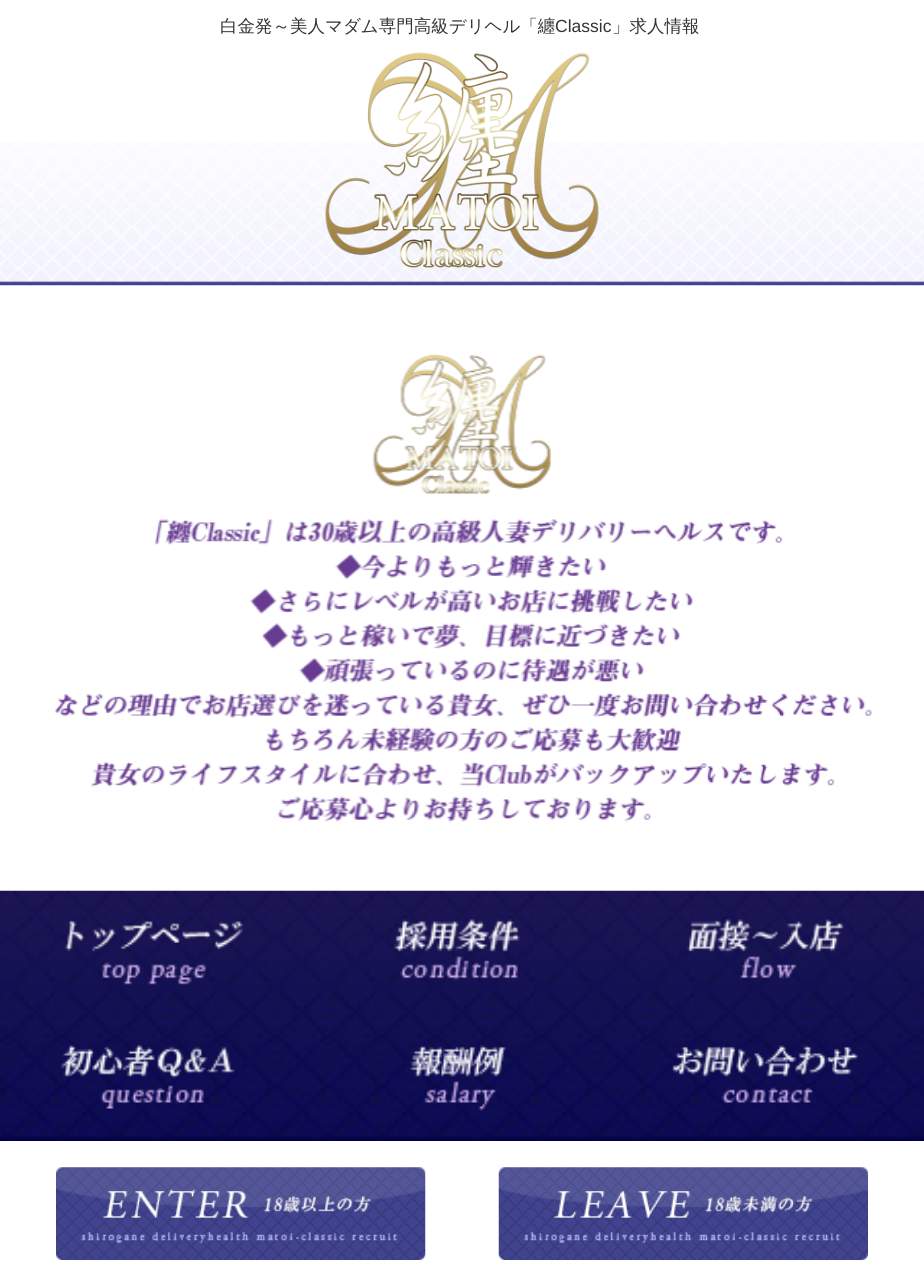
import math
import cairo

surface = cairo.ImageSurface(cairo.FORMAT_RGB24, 924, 1263)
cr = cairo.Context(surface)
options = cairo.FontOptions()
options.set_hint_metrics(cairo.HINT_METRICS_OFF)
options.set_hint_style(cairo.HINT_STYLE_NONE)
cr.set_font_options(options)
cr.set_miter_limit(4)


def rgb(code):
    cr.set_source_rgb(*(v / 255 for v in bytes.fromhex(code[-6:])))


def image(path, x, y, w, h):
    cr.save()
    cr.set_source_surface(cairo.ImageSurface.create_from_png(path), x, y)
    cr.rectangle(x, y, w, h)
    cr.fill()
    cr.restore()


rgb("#ffffff")
cr.paint()
image("img/1.png", 0, 142, 924, 144)
image("img/2.png", 325, 52, 274, 216)
image("img/3.png", 55, 354, 818, 468)
image("img/4.png", 0, 890, 924, 251)
image("img/5.png", 65, 920, 178, 65)
image("img/6.png", 393, 919, 127, 61)
image("img/7.png", 687, 919, 157, 60)
image("img/8.png", 61, 1045, 174, 64)
image("img/9.png", 410, 1045, 96, 66)
image("img/10.png", 672, 1045, 186, 58)
image("img/11.png", 56, 1167, 370, 93)
image("img/12.png", 498, 1167, 370, 93)
cr.select_font_face("WenQuanYi Zen Hei Medium")
cr.set_font_size(17.5)
rgb("#333333")
cr.move_to(220, 32)
cr.show_text("白金発～美人マダム専門高級デリヘル「纏")
cr.select_font_face("Liberation Sans")
cr.move_to(555, 32)
cr.show_text("Classic")
cr.select_font_face("WenQuanYi Zen Hei Medium")
cr.move_to(612, 32)
cr.show_text("」求人情報")
surface.write_to_png("page.png")
